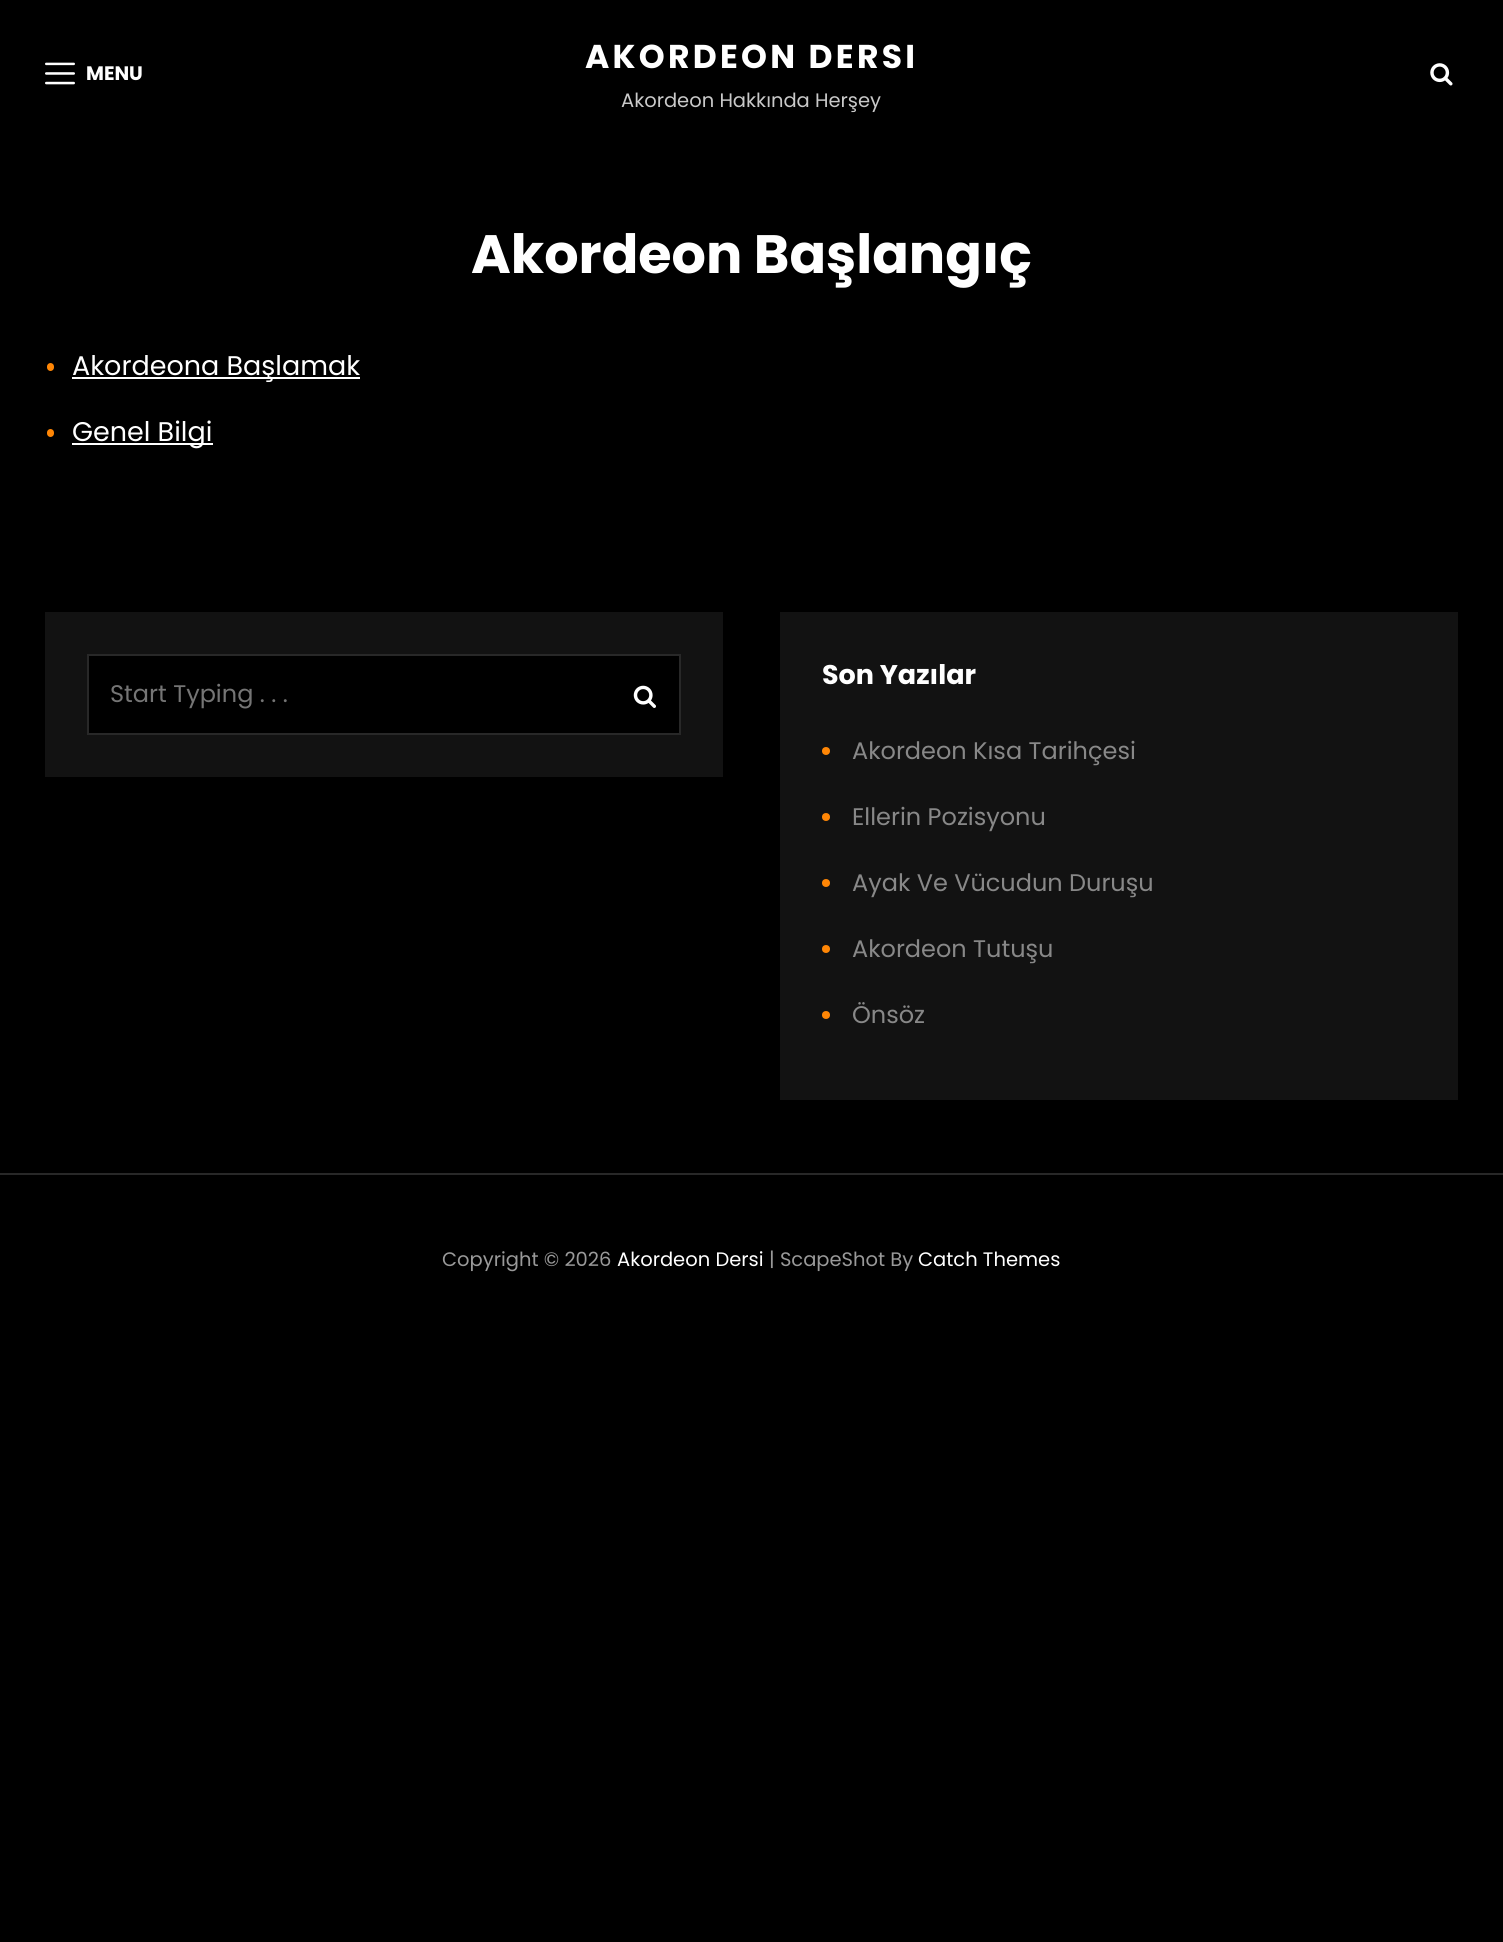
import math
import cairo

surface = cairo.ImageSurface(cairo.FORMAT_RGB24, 1503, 1942)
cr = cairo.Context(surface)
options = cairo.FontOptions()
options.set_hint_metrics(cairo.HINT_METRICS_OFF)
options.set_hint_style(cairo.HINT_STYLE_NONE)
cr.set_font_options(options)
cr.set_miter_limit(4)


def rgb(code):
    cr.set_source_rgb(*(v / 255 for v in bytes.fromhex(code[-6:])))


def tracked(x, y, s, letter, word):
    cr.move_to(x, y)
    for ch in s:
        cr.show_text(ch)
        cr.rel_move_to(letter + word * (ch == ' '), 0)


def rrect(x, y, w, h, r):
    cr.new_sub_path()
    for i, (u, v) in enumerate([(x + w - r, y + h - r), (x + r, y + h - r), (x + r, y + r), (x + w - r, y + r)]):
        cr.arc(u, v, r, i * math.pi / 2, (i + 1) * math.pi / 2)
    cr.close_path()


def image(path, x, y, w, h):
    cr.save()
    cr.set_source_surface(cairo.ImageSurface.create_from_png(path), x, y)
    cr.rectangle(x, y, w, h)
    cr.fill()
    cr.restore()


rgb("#000000")
cr.paint()
image("img/1.png", 45, 62, 30, 23)
image("img/2.png", 1430, 63, 23, 23)
rgb("#ff8605")
rrect(47, 363, 7, 8, 3.5)
cr.fill()
rgb("#ffffff")
cr.rectangle(72, 377, 288, 2)
cr.fill()
rgb("#ff8605")
rrect(47, 429, 7, 8, 3.5)
cr.fill()
rgb("#ffffff")
cr.rectangle(72, 443, 141, 2)
cr.fill()
rgb("#121212")
cr.rectangle(45, 612, 678, 165)
cr.fill()
rgb("#000000")
cr.rectangle(88, 655, 592, 79)
cr.fill_preserve()
rgb("#282828")
cr.stroke()
image("img/3.png", 633, 685, 23, 23)
rgb("#121212")
cr.rectangle(780, 612, 678, 488)
cr.fill()
rgb("#ff8605")
cr.arc(826, 751, 4, 0, 2 * math.pi)
cr.fill()
cr.arc(826, 817, 4, 0, 2 * math.pi)
cr.fill()
cr.arc(826, 883, 4, 0, 2 * math.pi)
cr.fill()
cr.arc(826, 949, 4, 0, 2 * math.pi)
cr.fill()
cr.arc(826, 1015, 4, 0, 2 * math.pi)
cr.fill()
rgb("#282828")
cr.rectangle(0, 1173, 1503, 2)
cr.fill()
cr.select_font_face("Poppins", cairo.FONT_SLANT_NORMAL, cairo.FONT_WEIGHT_BOLD)
cr.set_font_size(19.5)
rgb("#ffffff")
cr.move_to(86, 80)
cr.show_text("MENU")
cr.set_font_size(33)
tracked(585, 68, "AKORDEON DERSI", 3.25, 0)
cr.select_font_face("Poppins")
cr.set_font_size(19.5)
rgb("#c9c9c9")
cr.move_to(621, 107)
cr.show_text("Akordeon Hakkında Herşey")
cr.select_font_face("Poppins", cairo.FONT_SLANT_NORMAL, cairo.FONT_WEIGHT_BOLD)
cr.set_font_size(54)
rgb("#ffffff")
cr.move_to(471, 273)
cr.show_text("Akordeon Başlangıç")
cr.select_font_face("Poppins")
cr.set_font_size(27)
cr.move_to(72, 375)
cr.show_text("Akordeona Başlamak")
cr.move_to(72, 441)
cr.show_text("Genel Bilgi")
cr.set_font_size(24)
rgb("#757575")
cr.move_to(110, 702)
cr.show_text("Start Typing . . .")
cr.select_font_face("Poppins", cairo.FONT_SLANT_NORMAL, cairo.FONT_WEIGHT_BOLD)
cr.set_font_size(27)
rgb("#ffffff")
cr.move_to(822, 684)
cr.show_text("Son Yazılar")
cr.select_font_face("Poppins")
cr.set_font_size(24)
rgb("#888888")
for x, y, s in [
    (852, 759, "Akordeon Kısa Tarihçesi"),
    (852, 825, "Ellerin Pozisyonu"),
    (852, 891, "Ayak Ve Vücudun Duruşu"),
    (852, 957, "Akordeon Tutuşu"),
    (852, 1023, "Önsöz"),
]:
    cr.move_to(x, y)
    cr.show_text(s)
cr.set_font_size(19.5)
rgb("#999999")
cr.move_to(442, 1266)
cr.show_text("Copyright © 2026")
rgb("#ffffff")
cr.move_to(617, 1266)
cr.show_text("Akordeon Dersi")
rgb("#999999")
cr.move_to(769, 1266)
cr.show_text("| ScapeShot By")
rgb("#ffffff")
cr.move_to(918, 1266)
cr.show_text("Catch Themes")
surface.write_to_png("page.png")
